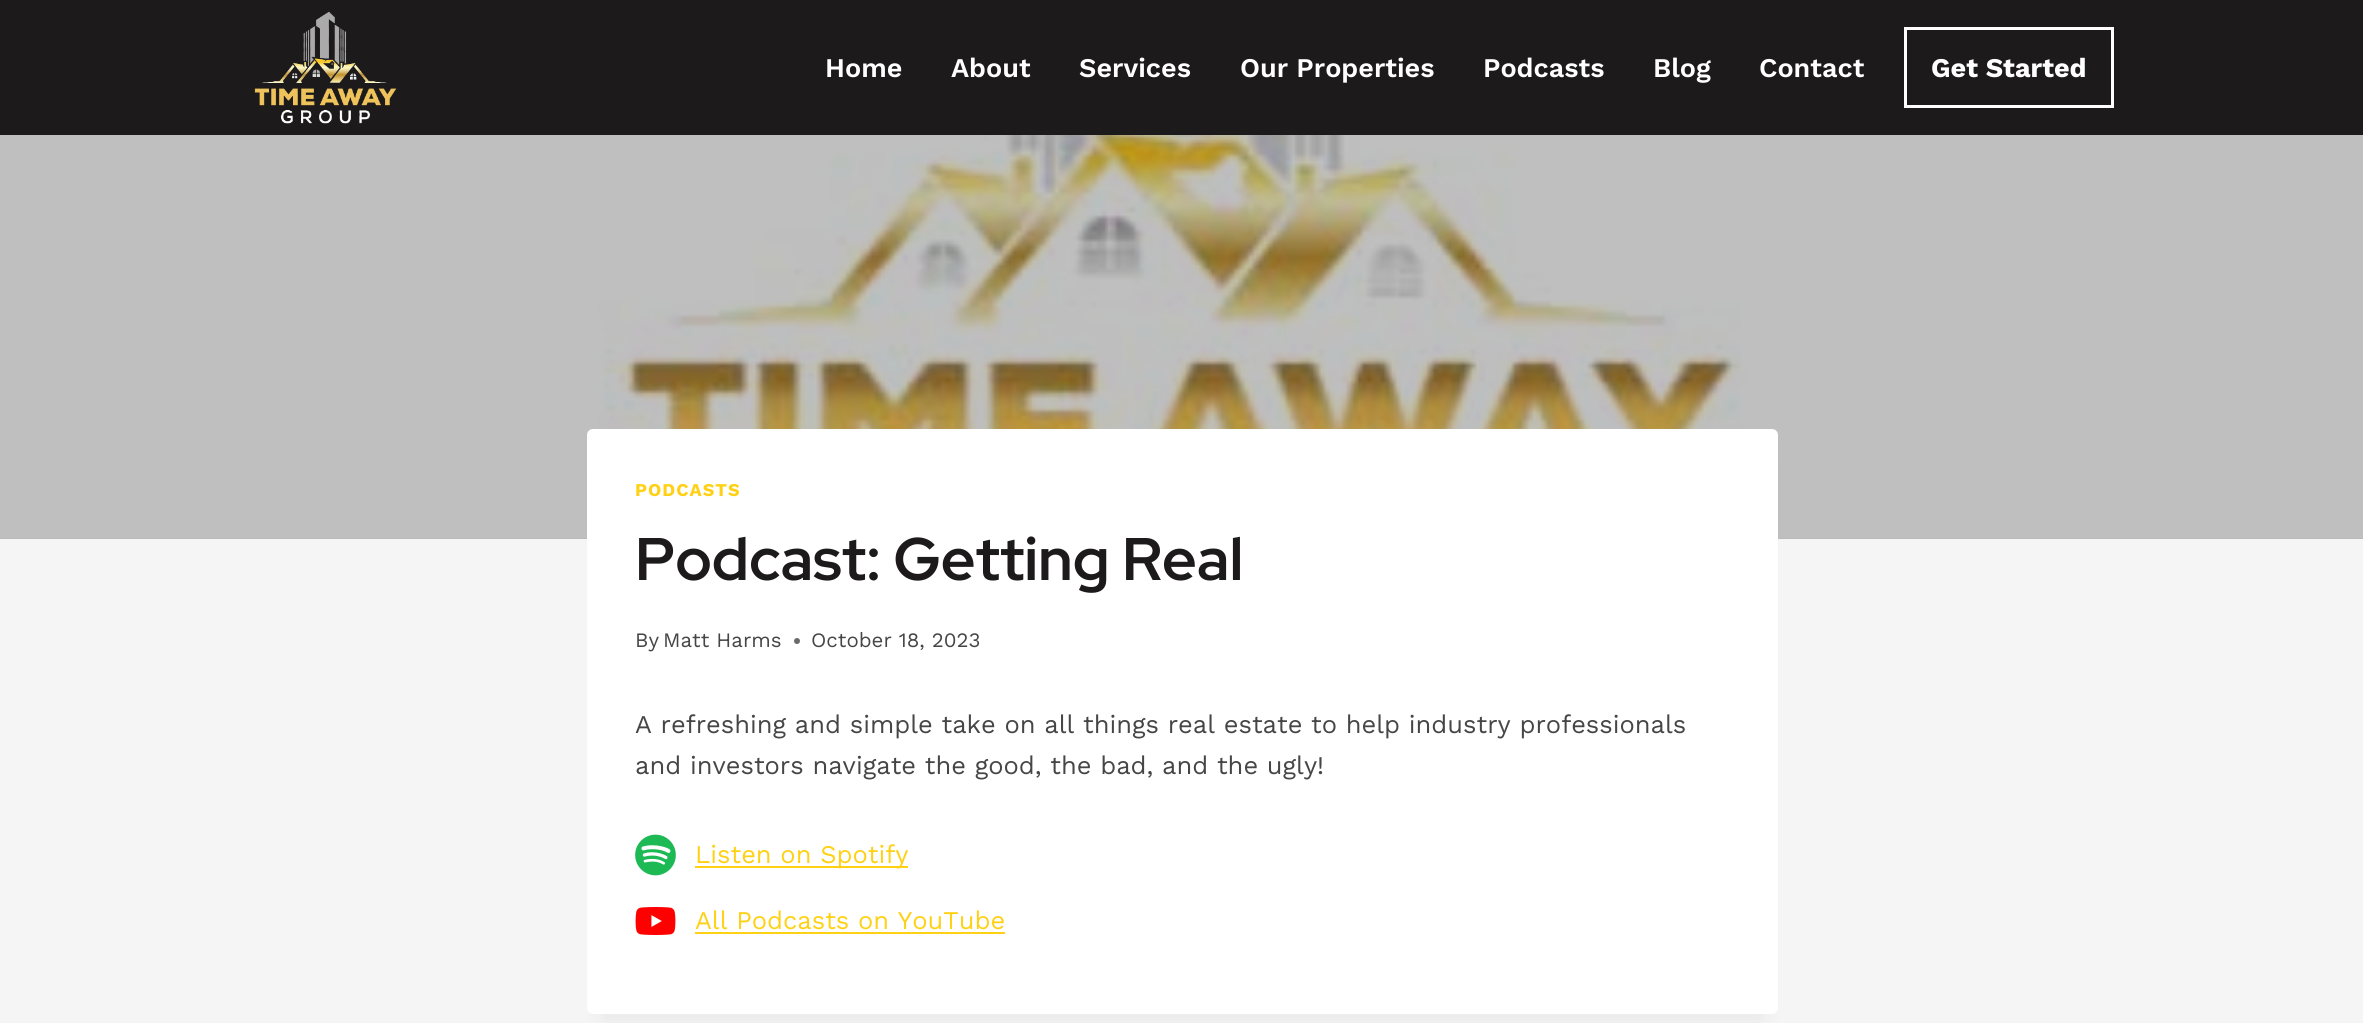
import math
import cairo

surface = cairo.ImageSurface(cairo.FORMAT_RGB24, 2363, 1023)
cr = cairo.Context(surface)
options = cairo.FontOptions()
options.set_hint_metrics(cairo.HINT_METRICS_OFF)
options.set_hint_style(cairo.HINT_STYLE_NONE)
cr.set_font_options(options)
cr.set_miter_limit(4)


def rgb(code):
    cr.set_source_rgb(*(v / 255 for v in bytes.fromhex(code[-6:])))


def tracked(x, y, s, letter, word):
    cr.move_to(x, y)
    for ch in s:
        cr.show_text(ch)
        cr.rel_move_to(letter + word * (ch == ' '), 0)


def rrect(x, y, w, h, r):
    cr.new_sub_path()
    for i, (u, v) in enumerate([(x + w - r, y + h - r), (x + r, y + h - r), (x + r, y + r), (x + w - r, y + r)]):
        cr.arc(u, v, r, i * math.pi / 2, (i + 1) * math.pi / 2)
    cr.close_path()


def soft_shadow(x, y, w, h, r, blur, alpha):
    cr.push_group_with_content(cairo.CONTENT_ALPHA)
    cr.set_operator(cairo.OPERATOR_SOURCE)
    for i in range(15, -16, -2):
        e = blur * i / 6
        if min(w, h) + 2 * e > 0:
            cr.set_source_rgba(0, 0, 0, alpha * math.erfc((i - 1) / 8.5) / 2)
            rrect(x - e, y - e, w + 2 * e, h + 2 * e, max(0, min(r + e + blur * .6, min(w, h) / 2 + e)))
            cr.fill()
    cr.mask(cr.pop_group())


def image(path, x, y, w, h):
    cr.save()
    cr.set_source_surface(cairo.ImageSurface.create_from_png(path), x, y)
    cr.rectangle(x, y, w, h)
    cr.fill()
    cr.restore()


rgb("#f6f5f5")
cr.paint()
rgb("#b9b8b8")
cr.rectangle(0, 538, 2363, 1)
cr.fill()
rgb("#1c1a1a")
cr.rectangle(0, 0, 2363, 135)
cr.fill()
image("img/1.png", 254, 11, 143, 113)
cr.rectangle(1905.5, 28.5, 207, 78)
rgb("#ffffff")
cr.set_line_width(3)
cr.stroke()
image("img/2.png", 0, 135, 2363, 404)
rgb("#000000")
soft_shadow(602, 467, 1161, 555, 0, 11, 0.05)
rgb("#ffffff")
rrect(587, 429, 1191, 585, 6)
cr.fill()
rgb("#6b6b6b")
cr.arc(797, 641, 3, 0, 2 * math.pi)
cr.fill()
image("img/3.png", 635, 834, 41, 42)
rgb("#ffd114")
cr.rectangle(695, 866, 213, 2)
cr.fill()
image("img/4.png", 635, 907, 41, 28)
cr.rectangle(695, 932, 310, 2)
cr.fill()
cr.select_font_face("Work Sans SemiBold")
cr.set_font_size(27)
rgb("#ffffff")
for x, y, s in [
    (825, 77, "Home"),
    (951, 77, "About"),
    (1079, 77, "Services"),
    (1240, 77, "Our Properties"),
    (1483, 77, "Podcasts"),
    (1653, 77, "Blog"),
    (1759, 77, "Contact"),
]:
    cr.move_to(x, y)
    cr.show_text(s)
cr.select_font_face("Work Sans", cairo.FONT_SLANT_NORMAL, cairo.FONT_WEIGHT_BOLD)
cr.move_to(1931, 77)
cr.show_text("Get Started")
cr.set_font_size(18)
rgb("#ffd114")
tracked(635, 496, "PODCASTS", 1, 0)
cr.select_font_face("Red Hat Display", cairo.FONT_SLANT_NORMAL, cairo.FONT_WEIGHT_BOLD)
cr.set_font_size(60)
rgb("#1c1a1a")
cr.move_to(635, 580)
cr.show_text("Podcast: Getting Real")
cr.select_font_face("Work Sans")
cr.set_font_size(20.5)
rgb("#464646")
for x, y, s in [
    (635, 647, "By"),
    (663, 647, "Matt Harms"),
    (811, 647, "October 18, 2023"),
]:
    cr.move_to(x, y)
    cr.show_text(s)
cr.set_font_size(25.5)
cr.move_to(635, 733)
cr.show_text("A refreshing and simple take on all things real estate to help industry professionals")
cr.move_to(635, 774)
cr.show_text("and investors navigate the good, the bad, and the ugly!")
rgb("#ffd114")
cr.move_to(695, 863)
cr.show_text("Listen on Spotify")
cr.move_to(695, 929)
cr.show_text("All Podcasts on YouTube")
surface.write_to_png("page.png")
